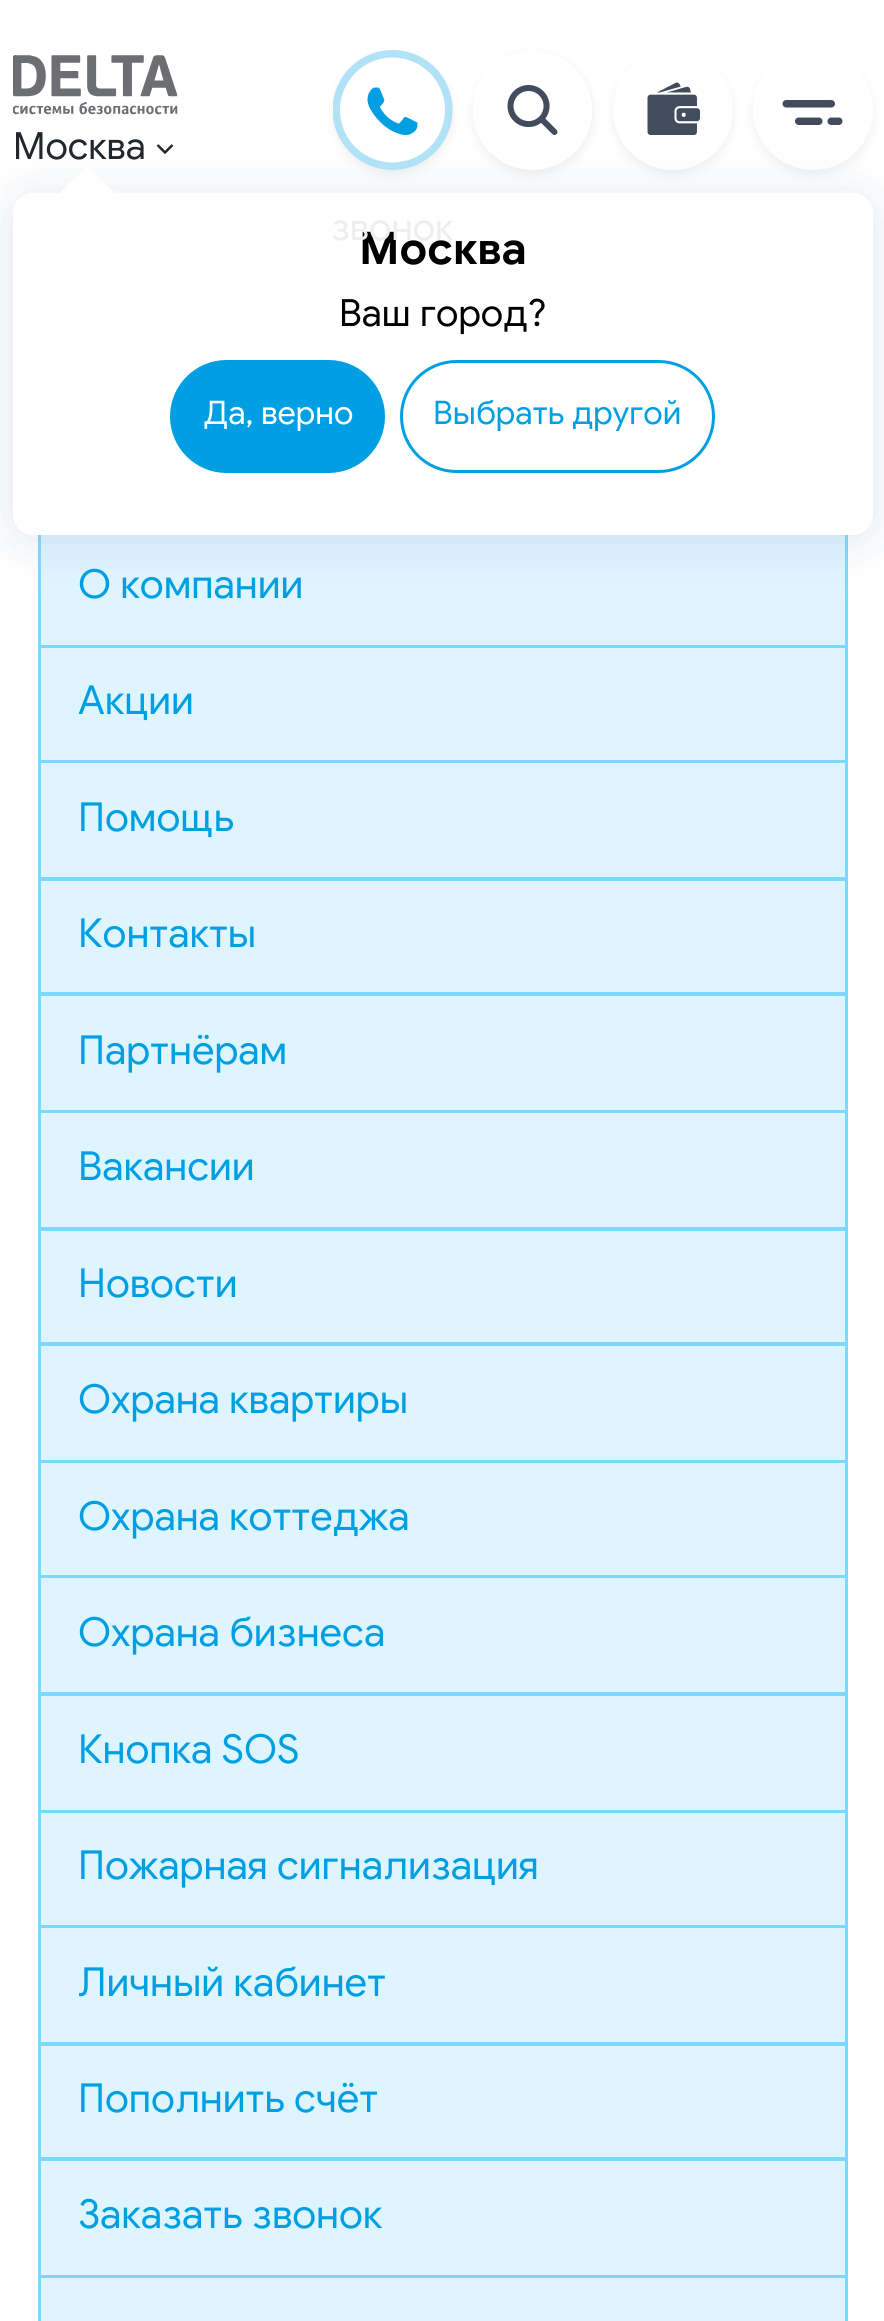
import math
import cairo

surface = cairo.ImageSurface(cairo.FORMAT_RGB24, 884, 2321)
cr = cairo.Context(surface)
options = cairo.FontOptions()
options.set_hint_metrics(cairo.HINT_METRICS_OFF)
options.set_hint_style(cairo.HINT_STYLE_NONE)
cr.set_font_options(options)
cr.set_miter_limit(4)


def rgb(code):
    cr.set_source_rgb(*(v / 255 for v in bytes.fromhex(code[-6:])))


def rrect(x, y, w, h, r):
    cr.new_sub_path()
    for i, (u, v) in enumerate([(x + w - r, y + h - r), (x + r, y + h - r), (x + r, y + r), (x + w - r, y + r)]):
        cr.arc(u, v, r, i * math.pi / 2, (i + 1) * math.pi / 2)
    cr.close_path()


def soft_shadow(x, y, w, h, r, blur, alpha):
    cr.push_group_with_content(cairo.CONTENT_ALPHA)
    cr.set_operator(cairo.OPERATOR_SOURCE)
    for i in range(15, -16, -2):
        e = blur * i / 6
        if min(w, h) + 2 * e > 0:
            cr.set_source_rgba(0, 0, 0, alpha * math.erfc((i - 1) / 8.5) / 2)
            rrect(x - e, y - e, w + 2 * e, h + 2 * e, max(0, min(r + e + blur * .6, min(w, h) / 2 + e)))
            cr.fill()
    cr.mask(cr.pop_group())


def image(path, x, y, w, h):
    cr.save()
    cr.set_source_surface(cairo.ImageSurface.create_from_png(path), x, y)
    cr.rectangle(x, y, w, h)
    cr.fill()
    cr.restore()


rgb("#ffffff")
cr.paint()
image("img/1.png", 13, 55, 165, 60)
cr.new_path()
cr.move_to(157.5, 145)
cr.line_to(165, 152.5)
cr.line_to(172.5, 145)
rgb("#22262d")
cr.set_line_width(2.5)
cr.stroke()
cr.save()
cr.set_fill_rule(cairo.FILL_RULE_EVEN_ODD)
cr.new_path()
cr.move_to(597, 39)
cr.line_to(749, 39)
cr.line_to(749, 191)
cr.line_to(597, 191)
cr.close_path()
cr.move_to(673, 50)
cr.curve_to(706, 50, 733, 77, 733, 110)
cr.curve_to(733, 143, 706, 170, 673, 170)
cr.curve_to(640, 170, 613, 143, 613, 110)
cr.curve_to(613, 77, 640, 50, 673, 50)
cr.close_path()
cr.clip()
rgb("#28292a")
soft_shadow(613, 55, 120, 120, 60, 5, 0.07)
cr.restore()
image("img/3.png", 647, 82, 53, 53)
cr.save()
cr.set_fill_rule(cairo.FILL_RULE_EVEN_ODD)
cr.new_path()
cr.move_to(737, 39)
cr.line_to(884, 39)
cr.line_to(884, 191)
cr.line_to(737, 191)
cr.close_path()
cr.move_to(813, 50)
cr.curve_to(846, 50, 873, 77, 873, 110)
cr.curve_to(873, 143, 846, 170, 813, 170)
cr.curve_to(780, 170, 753, 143, 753, 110)
cr.curve_to(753, 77, 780, 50, 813, 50)
cr.close_path()
cr.clip()
rgb("#28292a")
soft_shadow(753, 55, 120, 120, 60, 5, 0.07)
cr.restore()
image("img/4.png", 782, 100, 61, 25)
rgb("#def5ff")
cr.rectangle(41, 535, 804, 110)
cr.fill()
cr.rectangle(39.5, 529.5, 807, 117)
rgb("#7dd8ff")
cr.set_line_width(3)
cr.stroke()
rgb("#8c9ab9")
soft_shadow(13, 198, 860, 342, 20, 25, 0.25)
rgb("#ffffff")
rrect(13, 193, 860, 342, 20)
cr.fill()
cr.new_path()
cr.move_to(87, 166)
cr.line_to(123, 201)
cr.line_to(88, 237)
cr.line_to(52, 201)
cr.close_path()
cr.fill()
rgb("#009fe3")
rrect(171.5, 361.5, 212, 110, 55)
cr.fill_preserve()
cr.stroke()
rrect(401.5, 361.5, 312, 110, 55)
cr.stroke()
rgb("#28292a")
soft_shadow(473, 55, 120, 120, 60, 5, 0.07)
rgb("#efefef")
cr.arc(533, 110, 60, 0, 2 * math.pi)
cr.fill()
image("img/2.png", 473, 50, 120, 120)
rgb("#28292a")
soft_shadow(333, 55, 120, 120, 60, 5, 0.07)
rgb("#efefef")
cr.arc(393, 110, 60, 0, 2 * math.pi)
cr.fill()
image("img/5.png", 333, 50, 120, 120)
rgb("#def5ff")
cr.rectangle(39.5, 646.5, 807, 115)
cr.fill_preserve()
rgb("#7dd8ff")
cr.stroke()
rgb("#def5ff")
cr.rectangle(39.5, 761.5, 807, 117)
cr.fill_preserve()
rgb("#7dd8ff")
cr.stroke()
rgb("#def5ff")
cr.rectangle(39.5, 879.5, 807, 114)
cr.fill_preserve()
rgb("#7dd8ff")
cr.stroke()
rgb("#def5ff")
cr.rectangle(39.5, 994.5, 807, 117)
cr.fill_preserve()
rgb("#7dd8ff")
cr.stroke()
rgb("#def5ff")
cr.rectangle(39.5, 1111.5, 807, 117)
cr.fill_preserve()
rgb("#7dd8ff")
cr.stroke()
rgb("#def5ff")
cr.rectangle(39.5, 1229.5, 807, 114)
cr.fill_preserve()
rgb("#7dd8ff")
cr.stroke()
rgb("#def5ff")
cr.rectangle(39.5, 1344.5, 807, 117)
cr.fill_preserve()
rgb("#7dd8ff")
cr.stroke()
rgb("#def5ff")
cr.rectangle(39.5, 1461.5, 807, 115)
cr.fill_preserve()
rgb("#7dd8ff")
cr.stroke()
rgb("#def5ff")
cr.rectangle(39.5, 1576.5, 807, 117)
cr.fill_preserve()
rgb("#7dd8ff")
cr.stroke()
rgb("#def5ff")
cr.rectangle(39.5, 1694.5, 807, 117)
cr.fill_preserve()
rgb("#7dd8ff")
cr.stroke()
rgb("#def5ff")
cr.rectangle(39.5, 1811.5, 807, 115)
cr.fill_preserve()
rgb("#7dd8ff")
cr.stroke()
rgb("#def5ff")
cr.rectangle(39.5, 1926.5, 807, 117)
cr.fill_preserve()
rgb("#7dd8ff")
cr.stroke()
rgb("#def5ff")
cr.rectangle(39.5, 2044.5, 807, 114)
cr.fill_preserve()
rgb("#7dd8ff")
cr.stroke()
rgb("#def5ff")
cr.rectangle(39.5, 2159.5, 807, 117)
cr.fill_preserve()
rgb("#7dd8ff")
cr.stroke()
rgb("#def5ff")
cr.rectangle(39.5, 2276.5, 807, 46)
cr.fill_preserve()
rgb("#7dd8ff")
cr.stroke()
cr.select_font_face("Google Sans")
cr.set_font_size(37.5)
rgb("#22262d")
cr.move_to(13, 159)
cr.show_text("Москва")
cr.select_font_face("Google Sans", cairo.FONT_SLANT_NORMAL, cairo.FONT_WEIGHT_BOLD)
cr.set_font_size(45)
rgb("#000000")
cr.move_to(359, 264)
cr.show_text("Москва")
cr.select_font_face("Google Sans")
cr.set_font_size(37.5)
cr.move_to(339, 326)
cr.show_text("Ваш город?")
cr.set_font_size(32.5)
rgb("#ffffff")
cr.move_to(203, 424)
cr.show_text("Да, верно")
rgb("#009fe3")
cr.move_to(433, 424)
cr.show_text("Выбрать другой")
cr.set_font_size(37.5)
rgb("#eeeeee")
cr.move_to(331, 240)
cr.show_text("звонок")
cr.set_font_size(40)
rgb("#009fe3")
for x, y, s in [
    (78, 598, "О компании"),
    (78, 714, "Акции"),
    (78, 831, "Помощь"),
    (78, 947, "Контакты"),
    (78, 1064, "Партнёрам"),
    (78, 1180, "Вакансии"),
    (78, 1297, "Новости"),
    (78, 1413, "Охрана квартиры"),
    (78, 1530, "Охрана коттеджа"),
    (78, 1646, "Охрана бизнеса"),
    (78, 1763, "Кнопка SOS"),
    (78, 1879, "Пожарная сигнализация"),
    (78, 1996, "Личный кабинет"),
    (78, 2112, "Пополнить счёт"),
    (78, 2228, "Заказать звонок"),
]:
    cr.move_to(x, y)
    cr.show_text(s)
surface.write_to_png("page.png")
